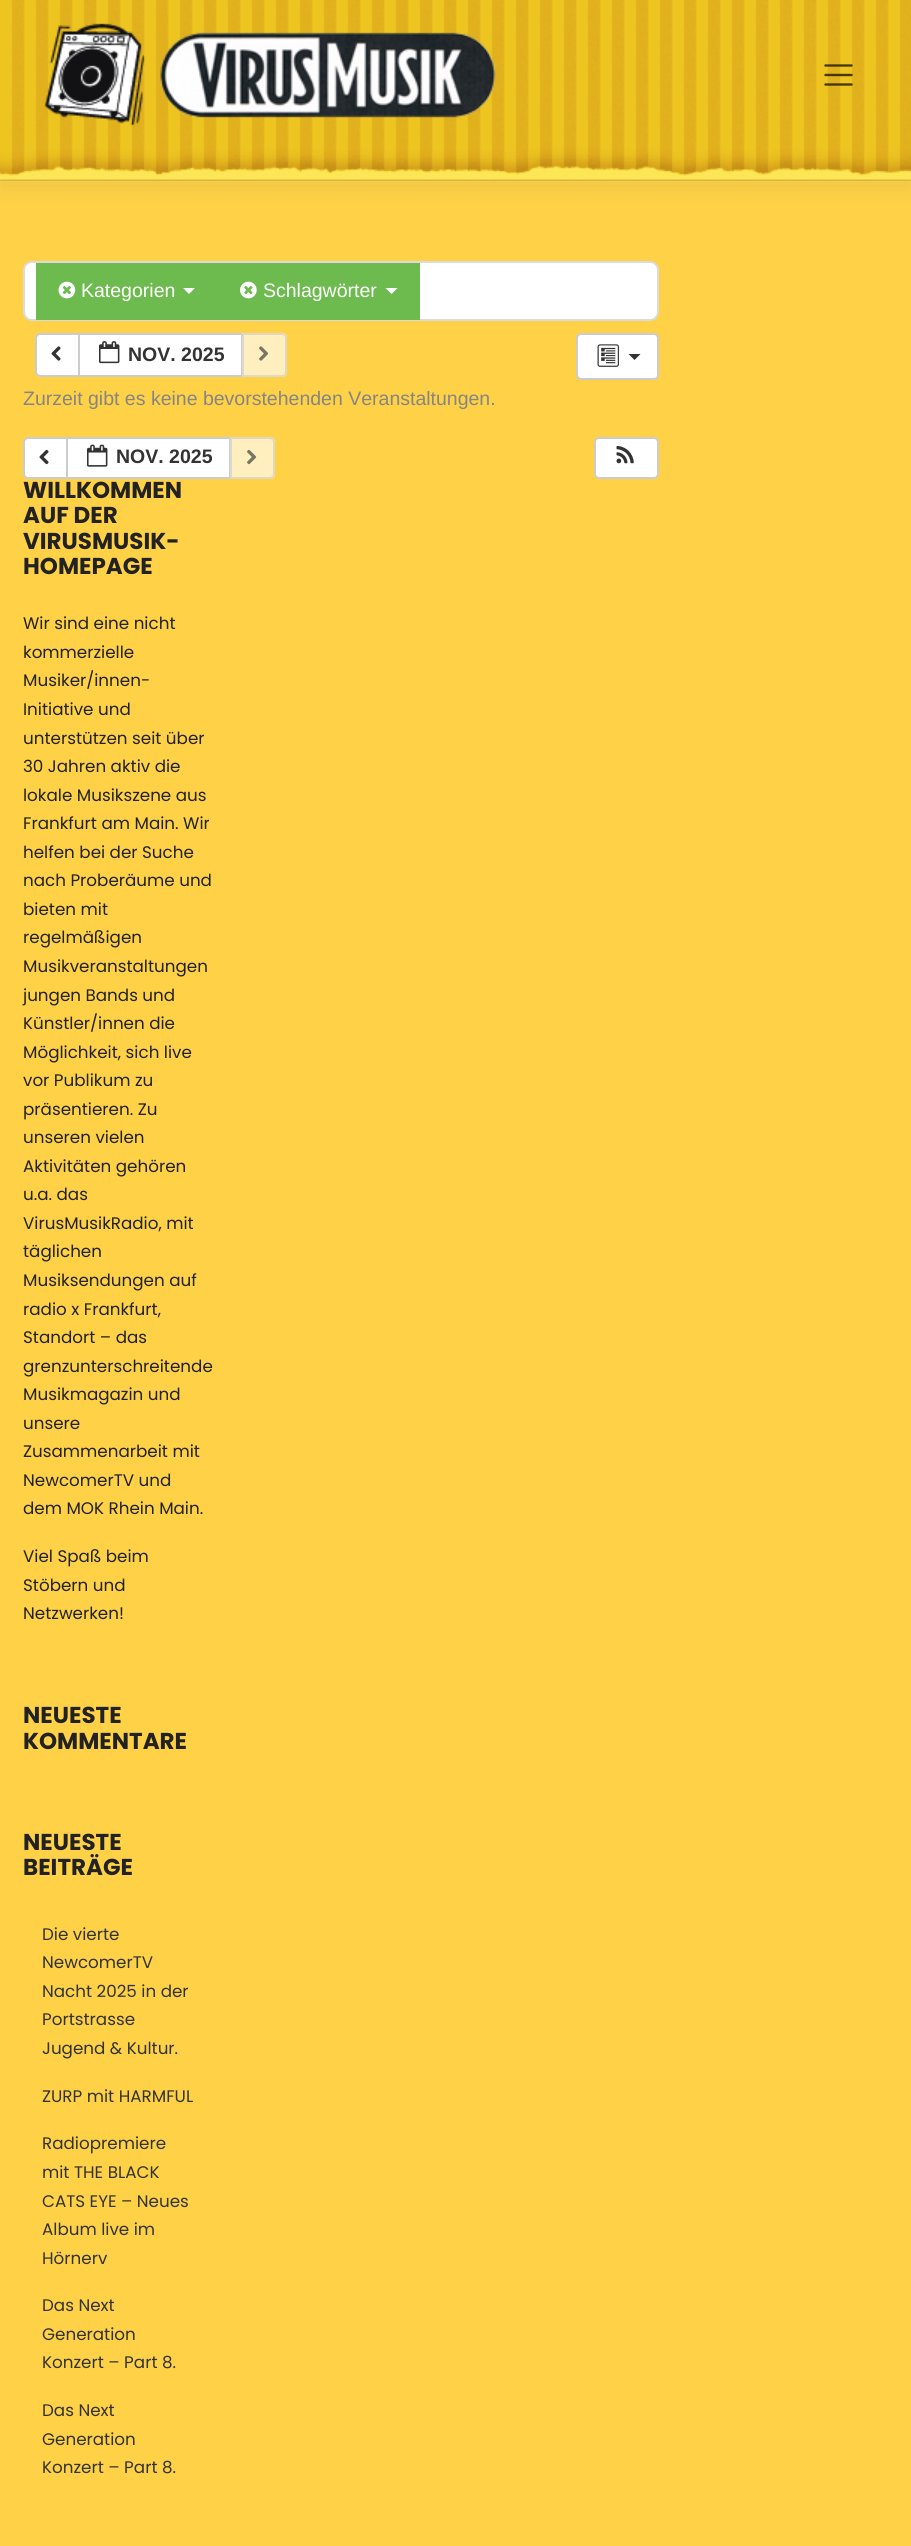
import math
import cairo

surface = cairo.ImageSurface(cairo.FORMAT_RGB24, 911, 2546)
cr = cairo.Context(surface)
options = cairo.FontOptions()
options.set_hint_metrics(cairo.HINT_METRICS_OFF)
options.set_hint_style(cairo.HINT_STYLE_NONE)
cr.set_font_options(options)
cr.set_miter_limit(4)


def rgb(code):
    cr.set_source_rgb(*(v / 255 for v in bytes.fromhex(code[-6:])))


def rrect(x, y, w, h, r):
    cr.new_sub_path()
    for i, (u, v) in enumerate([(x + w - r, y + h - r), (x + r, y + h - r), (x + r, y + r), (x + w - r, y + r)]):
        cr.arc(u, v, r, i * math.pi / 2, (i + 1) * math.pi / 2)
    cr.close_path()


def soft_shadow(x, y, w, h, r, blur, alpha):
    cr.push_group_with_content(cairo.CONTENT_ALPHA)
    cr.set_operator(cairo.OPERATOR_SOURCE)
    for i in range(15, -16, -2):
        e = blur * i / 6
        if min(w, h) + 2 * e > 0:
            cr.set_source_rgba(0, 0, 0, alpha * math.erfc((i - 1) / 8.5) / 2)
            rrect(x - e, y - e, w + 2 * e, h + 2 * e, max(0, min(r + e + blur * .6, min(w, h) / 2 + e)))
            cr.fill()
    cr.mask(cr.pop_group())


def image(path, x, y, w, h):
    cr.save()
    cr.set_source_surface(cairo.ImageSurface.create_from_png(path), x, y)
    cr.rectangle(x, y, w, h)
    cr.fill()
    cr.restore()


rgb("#fed146")
cr.paint()
rgb("#000000")
soft_shadow(0, 9, 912, 180, 0, 9.5, 0.05)
image("img/1.png", 0, 0, 911, 180)
cr.set_source_rgba(0, 0, 0, 0.1)
cr.rectangle(0, 179, 911, 2)
cr.fill()
image("img/2.png", 44, 23, 452, 103)
cr.new_path()
cr.move_to(825.5, 65.5)
cr.line_to(851.5, 65.5)
cr.move_to(825.5, 75)
cr.line_to(851.5, 75)
cr.move_to(825.5, 84.5)
cr.line_to(851.5, 84.5)
cr.set_source_rgba(0, 0, 0, 0.7)
cr.set_line_width(2.4)
cr.set_line_cap(cairo.LINE_CAP_ROUND)
cr.stroke()
rgb("#ffffff")
rrect(24, 262, 634, 58, 8)
cr.fill_preserve()
rgb("#dbdbdb")
cr.set_line_width(2)
cr.set_line_cap(cairo.LINE_CAP_BUTT)
cr.stroke()
rgb("#6dbb4f")
cr.rectangle(36, 263, 384, 57)
cr.fill()
image("img/3.png", 58, 281, 18, 18)
rgb("#ffffff")
cr.new_path()
cr.move_to(183, 288)
cr.line_to(195, 288)
cr.line_to(189, 294)
cr.close_path()
cr.fill()
image("img/4.png", 240, 281, 17, 18)
cr.new_path()
cr.move_to(385.5, 288)
cr.line_to(397.5, 288)
cr.line_to(391.5, 294)
cr.close_path()
cr.fill()
cr.new_path()
cr.move_to(40, 334)
cr.line_to(79, 334)
cr.line_to(79, 376)
cr.line_to(40, 376)
cr.curve_to(38, 376, 36, 374, 36, 372)
cr.line_to(36, 338)
cr.curve_to(36, 336, 38, 334, 40, 334)
cr.close_path()
cr.fill_preserve()
rgb("#cccccc")
cr.stroke()
image("img/5.png", 51, 346, 10, 15)
rgb("#ffffff")
cr.rectangle(79, 334, 163, 42)
cr.fill_preserve()
rgb("#cccccc")
cr.stroke()
image("img/6.png", 99, 341, 21, 23)
cr.set_source_rgba(1, 1, 1, 0.65)
cr.new_path()
cr.move_to(242, 333)
cr.line_to(282, 333)
cr.curve_to(285, 333, 287, 335, 287, 338)
cr.line_to(287, 372)
cr.curve_to(287, 375, 285, 377, 282, 377)
cr.line_to(242, 377)
cr.close_path()
cr.fill()
cr.new_path()
cr.move_to(243, 334)
cr.line_to(282, 334)
cr.curve_to(284, 334, 286, 336, 286, 338)
cr.line_to(286, 372)
cr.curve_to(286, 374, 284, 376, 282, 376)
cr.line_to(243, 376)
cr.close_path()
cr.set_source_rgba(0.8, 0.8, 0.8, 0.65)
cr.stroke()
image("img/7.png", 259, 346, 10, 15)
rgb("#ffffff")
rrect(577, 334, 81, 45, 4)
cr.fill_preserve()
rgb("#cccccc")
cr.stroke()
image("img/8.png", 597, 344, 22, 23)
rgb("#333333")
cr.new_path()
cr.move_to(628.5, 354)
cr.line_to(640.5, 354)
cr.line_to(634.5, 360)
cr.close_path()
cr.fill()
rgb("#ffffff")
cr.new_path()
cr.move_to(28, 438)
cr.line_to(67, 438)
cr.line_to(67, 478)
cr.line_to(28, 478)
cr.curve_to(26, 478, 24, 476, 24, 474)
cr.line_to(24, 442)
cr.curve_to(24, 440, 26, 438, 28, 438)
cr.close_path()
cr.fill_preserve()
rgb("#cccccc")
cr.stroke()
image("img/9.png", 39, 449, 10, 16)
rgb("#ffffff")
cr.rectangle(67, 438, 163, 40)
cr.fill_preserve()
rgb("#cccccc")
cr.stroke()
image("img/10.png", 87, 444, 21, 23)
cr.set_source_rgba(1, 1, 1, 0.65)
cr.new_path()
cr.move_to(230, 437)
cr.line_to(270, 437)
cr.curve_to(273, 437, 275, 439, 275, 442)
cr.line_to(275, 474)
cr.curve_to(275, 477, 273, 479, 270, 479)
cr.line_to(230, 479)
cr.close_path()
cr.fill()
cr.new_path()
cr.move_to(231, 438)
cr.line_to(270, 438)
cr.curve_to(272, 438, 274, 440, 274, 442)
cr.line_to(274, 474)
cr.curve_to(274, 476, 272, 478, 270, 478)
cr.line_to(231, 478)
cr.close_path()
cr.set_source_rgba(0.8, 0.8, 0.8, 0.65)
cr.stroke()
image("img/11.png", 247, 449, 10, 16)
rgb("#ffffff")
rrect(595, 438, 63, 40, 4)
cr.fill_preserve()
rgb("#cccccc")
cr.stroke()
image("img/12.png", 616, 446, 18, 18)
cr.select_font_face("Liberation Sans")
cr.set_font_size(19.5)
rgb("#ffffff")
cr.move_to(81, 297)
cr.show_text("Kategorien")
cr.move_to(263, 297)
cr.show_text("Schlagwörter")
cr.select_font_face("Liberation Sans", cairo.FONT_SLANT_NORMAL, cairo.FONT_WEIGHT_BOLD)
rgb("#333333")
cr.move_to(128, 361)
cr.show_text("NOV. 2025")
cr.select_font_face("Liberation Sans")
rgb("#858585")
cr.move_to(23, 405)
cr.show_text("Zurzeit gibt es keine bevorstehenden Veranstaltungen.")
cr.select_font_face("Liberation Sans", cairo.FONT_SLANT_NORMAL, cairo.FONT_WEIGHT_BOLD)
rgb("#333333")
cr.move_to(116, 463)
cr.show_text("NOV. 2025")
cr.select_font_face("Poppins", cairo.FONT_SLANT_NORMAL, cairo.FONT_WEIGHT_BOLD)
cr.set_font_size(23)
rgb("#222222")
for x, y, s in [
    (23, 498, "WILLKOMMEN"),
    (23, 523, "AUF DER"),
    (23, 549, "VIRUSMUSIK-"),
    (23, 574, "HOMEPAGE"),
]:
    cr.move_to(x, y)
    cr.show_text(s)
cr.select_font_face("Poppins")
cr.set_font_size(16.75)
for x, y, s in [
    (23, 629, "Wir sind eine nicht"),
    (23, 658, "kommerzielle"),
    (23, 686, "Musiker/innen-"),
    (23, 715, "Initiative und"),
    (23, 744, "unterstützen seit über"),
    (23, 772, "30 Jahren aktiv die"),
    (23, 801, "lokale Musikszene aus"),
    (23, 829, "Frankfurt am Main. Wir"),
    (23, 858, "helfen bei der Suche"),
    (23, 886, "nach Proberäume und"),
    (23, 915, "bieten mit"),
    (23, 943, "regelmäßigen"),
    (23, 972, "Musikveranstaltungen"),
    (23, 1001, "jungen Bands und"),
    (23, 1029, "Künstler/innen die"),
    (23, 1058, "Möglichkeit, sich live"),
    (23, 1086, "vor Publikum zu"),
    (23, 1115, "präsentieren. Zu"),
    (23, 1143, "unseren vielen"),
    (23, 1172, "Aktivitäten gehören"),
    (23, 1200, "u.a. das"),
    (23, 1229, "VirusMusikRadio, mit"),
    (23, 1257, "täglichen"),
    (23, 1286, "Musiksendungen auf"),
    (23, 1315, "radio x Frankfurt,"),
    (23, 1343, "Standort – das"),
    (23, 1372, "grenzunterschreitende"),
    (23, 1400, "Musikmagazin und"),
    (23, 1429, "unsere"),
    (23, 1457, "Zusammenarbeit mit"),
    (23, 1486, "NewcomerTV und"),
    (23, 1514, "dem MOK Rhein Main."),
    (23, 1562, "Viel Spaß beim"),
    (23, 1591, "Stöbern und"),
    (23, 1619, "Netzwerken!"),
]:
    cr.move_to(x, y)
    cr.show_text(s)
cr.select_font_face("Poppins", cairo.FONT_SLANT_NORMAL, cairo.FONT_WEIGHT_BOLD)
cr.set_font_size(23)
for x, y, s in [
    (23, 1723, "NEUESTE"),
    (23, 1749, "KOMMENTARE"),
    (23, 1850, "NEUESTE"),
    (23, 1875, "BEITRÄGE"),
]:
    cr.move_to(x, y)
    cr.show_text(s)
cr.select_font_face("Poppins")
cr.set_font_size(16.75)
rgb("#333333")
for x, y, s in [
    (42, 1940, "Die vierte"),
    (42, 1968, "NewcomerTV"),
    (42, 1997, "Nacht 2025 in der"),
    (42, 2025, "Portstrasse"),
    (42, 2054, "Jugend & Kultur."),
    (42, 2102, "ZURP mit HARMFUL"),
    (42, 2149, "Radiopremiere"),
    (42, 2178, "mit THE BLACK"),
    (42, 2207, "CATS EYE – Neues"),
    (42, 2235, "Album live im"),
    (42, 2264, "Hörnerv"),
    (42, 2311, "Das Next"),
    (42, 2340, "Generation"),
    (42, 2368, "Konzert – Part 8."),
    (42, 2416, "Das Next"),
    (42, 2445, "Generation"),
    (42, 2473, "Konzert – Part 8."),
]:
    cr.move_to(x, y)
    cr.show_text(s)
surface.write_to_png("page.png")
